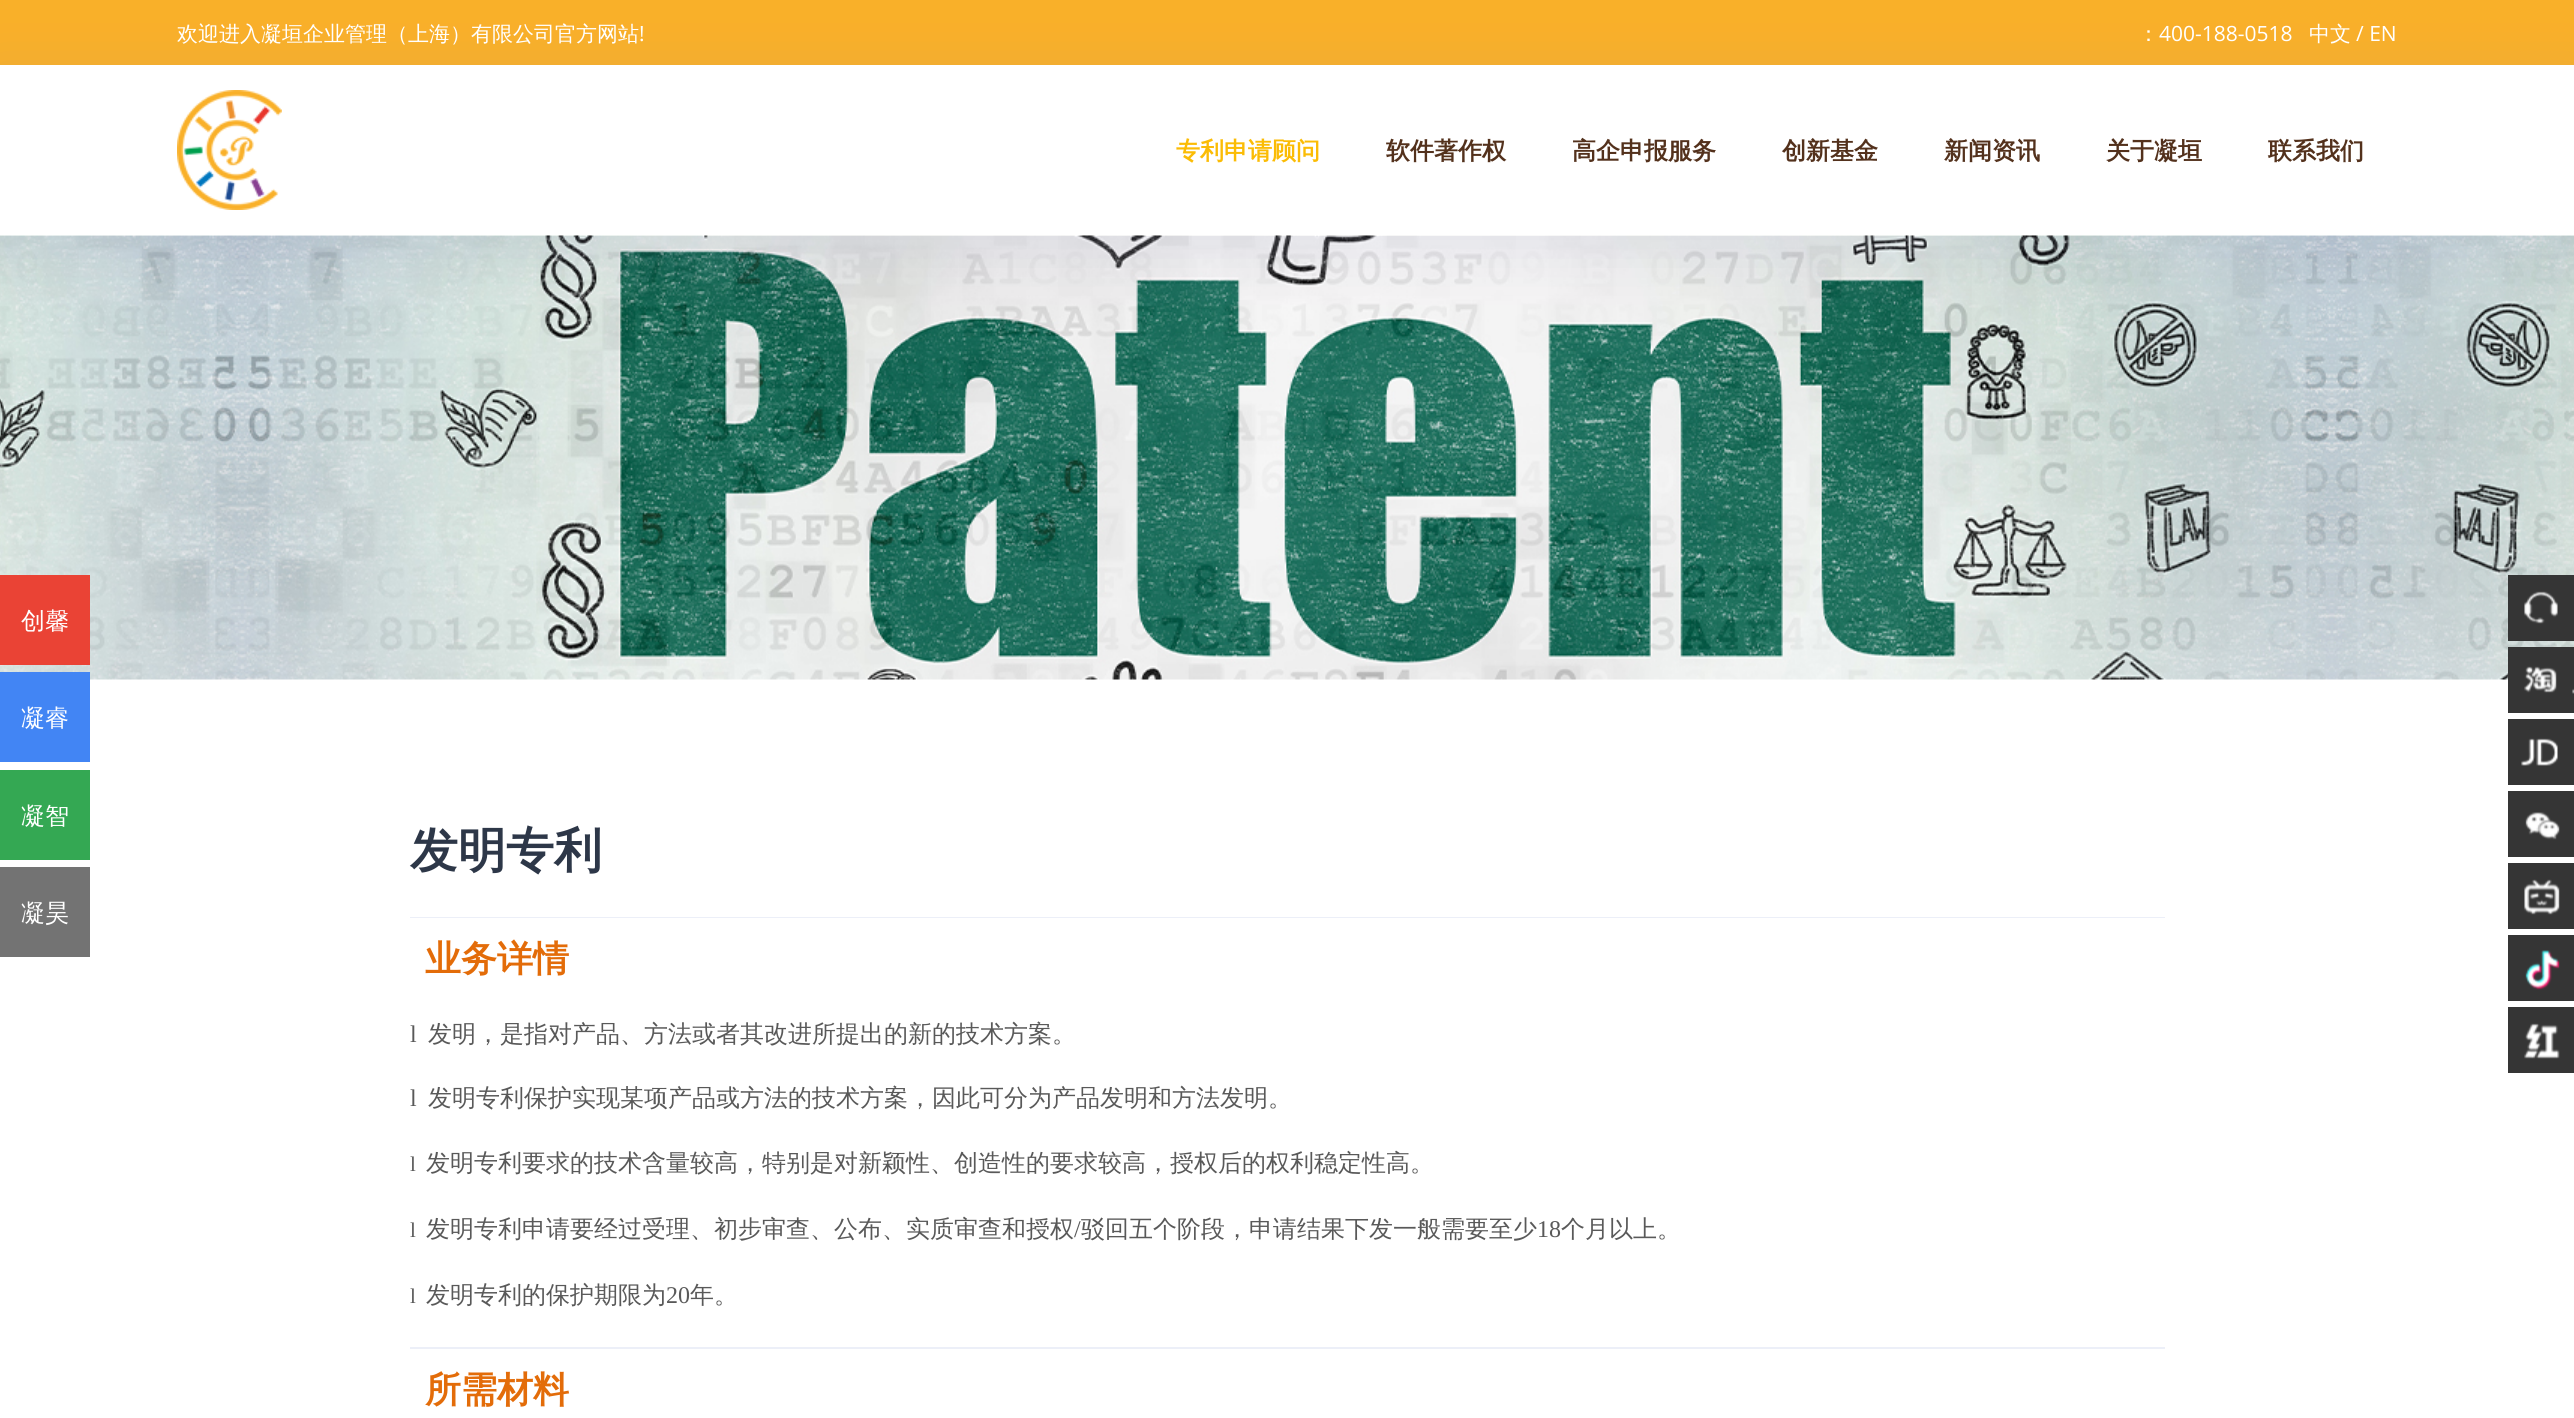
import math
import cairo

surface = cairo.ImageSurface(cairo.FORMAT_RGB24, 2574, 1418)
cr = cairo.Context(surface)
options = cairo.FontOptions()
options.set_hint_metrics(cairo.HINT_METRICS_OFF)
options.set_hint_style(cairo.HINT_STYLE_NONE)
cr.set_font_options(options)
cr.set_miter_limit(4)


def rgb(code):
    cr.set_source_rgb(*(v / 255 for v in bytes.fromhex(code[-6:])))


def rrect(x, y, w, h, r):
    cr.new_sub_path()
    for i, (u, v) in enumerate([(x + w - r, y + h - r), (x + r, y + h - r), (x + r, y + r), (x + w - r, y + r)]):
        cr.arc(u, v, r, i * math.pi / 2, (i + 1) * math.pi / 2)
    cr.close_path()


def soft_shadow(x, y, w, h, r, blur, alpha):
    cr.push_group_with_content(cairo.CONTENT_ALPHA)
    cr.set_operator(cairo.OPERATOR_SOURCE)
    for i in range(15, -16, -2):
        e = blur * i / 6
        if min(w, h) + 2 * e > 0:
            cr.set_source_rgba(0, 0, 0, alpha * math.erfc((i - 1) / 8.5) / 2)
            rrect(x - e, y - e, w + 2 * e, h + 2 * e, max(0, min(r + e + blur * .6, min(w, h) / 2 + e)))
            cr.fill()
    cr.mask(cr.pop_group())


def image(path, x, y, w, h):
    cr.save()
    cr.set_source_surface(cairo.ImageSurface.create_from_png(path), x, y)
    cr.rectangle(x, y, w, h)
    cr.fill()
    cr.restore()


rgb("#ffffff")
cr.paint()
rgb("#f9b029")
cr.rectangle(0, 0, 2574, 65)
cr.fill()
image("img/2.png", 0, 235, 2574, 445)
cr.save()
cr.set_fill_rule(cairo.FILL_RULE_EVEN_ODD)
cr.new_path()
cr.move_to(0, 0)
cr.line_to(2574, 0)
cr.line_to(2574, 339)
cr.line_to(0, 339)
cr.close_path()
cr.move_to(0, 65)
cr.line_to(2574, 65)
cr.line_to(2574, 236)
cr.line_to(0, 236)
cr.close_path()
cr.clip()
rgb("#807bad")
soft_shadow(-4, 74, 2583, 180, 0, 28, 0.15)
cr.restore()
image("img/1.png", 177, 90, 105, 120)
for x, y, w, h, color in [
    (0, 575, 90, 90, "#ea4335"),
    (0, 672, 90, 90, "#4285f4"),
    (0, 770, 90, 90, "#34a853"),
    (0, 867, 90, 90, "#737373"),
    (2508, 575, 66, 66, "#353535"),
]:
    rgb(color)
    cr.rectangle(x, y, w, h)
    cr.fill()
image("img/3.png", 2524, 591, 34, 33)
cr.rectangle(2508, 647, 66, 66)
cr.fill()
image("img/4.png", 2524, 666, 50, 28)
cr.rectangle(2508, 719, 66, 66)
cr.fill()
image("img/5.png", 2521, 738, 37, 28)
cr.rectangle(2508, 791, 66, 66)
cr.fill()
image("img/6.png", 2525, 812, 35, 28)
cr.rectangle(2508, 863, 66, 66)
cr.fill()
image("img/7.png", 2524, 879, 36, 36)
cr.rectangle(2508, 935, 66, 66)
cr.fill()
image("img/8.png", 2525, 950, 35, 40)
cr.rectangle(2508, 1007, 66, 66)
cr.fill()
image("img/9.png", 2524, 1023, 36, 36)
rgb("#eceff8")
cr.rectangle(410, 917, 1755, 1)
cr.fill()
cr.rectangle(410, 1347, 1755, 2)
cr.fill()
cr.select_font_face("WenQuanYi Zen Hei Medium")
cr.set_font_size(21)
rgb("#ffffff")
cr.move_to(177, 41)
cr.show_text("欢迎进入凝垣企业管理（上海）有限公司官方网站")
cr.select_font_face("Open Sans")
cr.move_to(639, 41)
cr.show_text("!")
cr.select_font_face("WenQuanYi Zen Hei Medium")
cr.move_to(2138, 41)
cr.show_text("：")
cr.select_font_face("Open Sans")
cr.move_to(2159, 41)
cr.show_text("400-188-0518")
cr.select_font_face("WenQuanYi Zen Hei Medium")
cr.move_to(2309, 41)
cr.show_text("中文")
cr.select_font_face("Open Sans")
cr.move_to(2356, 41)
cr.show_text("/ EN")
cr.select_font_face("WenQuanYi Zen Hei", cairo.FONT_SLANT_NORMAL, cairo.FONT_WEIGHT_BOLD)
cr.set_font_size(24)
rgb("#fbbc05")
cr.move_to(1176, 159)
cr.show_text("专利申请顾问")
rgb("#53311c")
for x, y, s in [
    (1386, 159, "软件著作权"),
    (1572, 159, "高企申报服务"),
    (1782, 159, "创新基金"),
    (1944, 159, "新闻资讯"),
    (2106, 159, "关于凝垣"),
    (2268, 159, "联系我们"),
]:
    cr.move_to(x, y)
    cr.show_text(s)
cr.select_font_face("WenQuanYi Zen Hei Medium")
rgb("#ffffff")
for x, y, s in [
    (21, 629, "创馨"),
    (21, 726, "凝睿"),
    (21, 824, "凝智"),
    (21, 921, "凝昊"),
]:
    cr.move_to(x, y)
    cr.show_text(s)
cr.select_font_face("WenQuanYi Zen Hei", cairo.FONT_SLANT_NORMAL, cairo.FONT_WEIGHT_BOLD)
cr.set_font_size(48)
rgb("#2d3748")
cr.move_to(410, 867)
cr.show_text("发明专利")
cr.set_font_size(36)
rgb("#e36c09")
cr.move_to(425, 971)
cr.show_text("业务详情")
cr.select_font_face("Liberation Serif")
cr.set_font_size(24)
rgb("#595959")
cr.move_to(410, 1042)
cr.show_text("l")
cr.select_font_face("WenQuanYi Zen Hei Medium")
cr.move_to(428, 1042)
cr.show_text("发明，是指对产品、方法或者其改进所提出的新的技术方案。")
cr.select_font_face("Liberation Serif")
cr.move_to(410, 1106)
cr.show_text("l")
cr.select_font_face("WenQuanYi Zen Hei Medium")
cr.move_to(428, 1106)
cr.show_text("发明专利保护实现某项产品或方法的技术方案，因此可分为产品发明和方法发明。")
cr.select_font_face("Liberation Serif")
cr.set_font_size(21)
cr.move_to(410, 1171)
cr.show_text("l")
cr.select_font_face("WenQuanYi Zen Hei Medium")
cr.set_font_size(24)
cr.move_to(426, 1171)
cr.show_text("发明专利要求的技术含量较高，特别是对新颖性、创造性的要求较高，授权后的权利稳定性高。")
cr.select_font_face("Liberation Serif")
cr.set_font_size(21)
cr.move_to(410, 1237)
cr.show_text("l")
cr.select_font_face("WenQuanYi Zen Hei Medium")
cr.set_font_size(24)
cr.move_to(426, 1237)
cr.show_text("发明专利申请要经过受理、初步审查、公布、实质审查和授权")
cr.select_font_face("Liberation Serif")
cr.move_to(1074, 1237)
cr.show_text("/")
cr.select_font_face("WenQuanYi Zen Hei Medium")
cr.move_to(1081, 1237)
cr.show_text("驳回五个阶段，申请结果下发一般需要至少")
cr.select_font_face("Liberation Serif")
cr.move_to(1537, 1237)
cr.show_text("18")
cr.select_font_face("WenQuanYi Zen Hei Medium")
cr.move_to(1561, 1237)
cr.show_text("个月以上。")
cr.select_font_face("Liberation Serif")
cr.set_font_size(21)
cr.move_to(410, 1303)
cr.show_text("l")
cr.select_font_face("WenQuanYi Zen Hei Medium")
cr.set_font_size(24)
cr.move_to(426, 1303)
cr.show_text("发明专利的保护期限为")
cr.select_font_face("Liberation Serif")
cr.move_to(666, 1303)
cr.show_text("20")
cr.select_font_face("WenQuanYi Zen Hei Medium")
cr.move_to(690, 1303)
cr.show_text("年。")
cr.select_font_face("WenQuanYi Zen Hei", cairo.FONT_SLANT_NORMAL, cairo.FONT_WEIGHT_BOLD)
cr.set_font_size(36)
rgb("#e36c09")
cr.move_to(425, 1402)
cr.show_text("所需材料")
surface.write_to_png("page.png")
